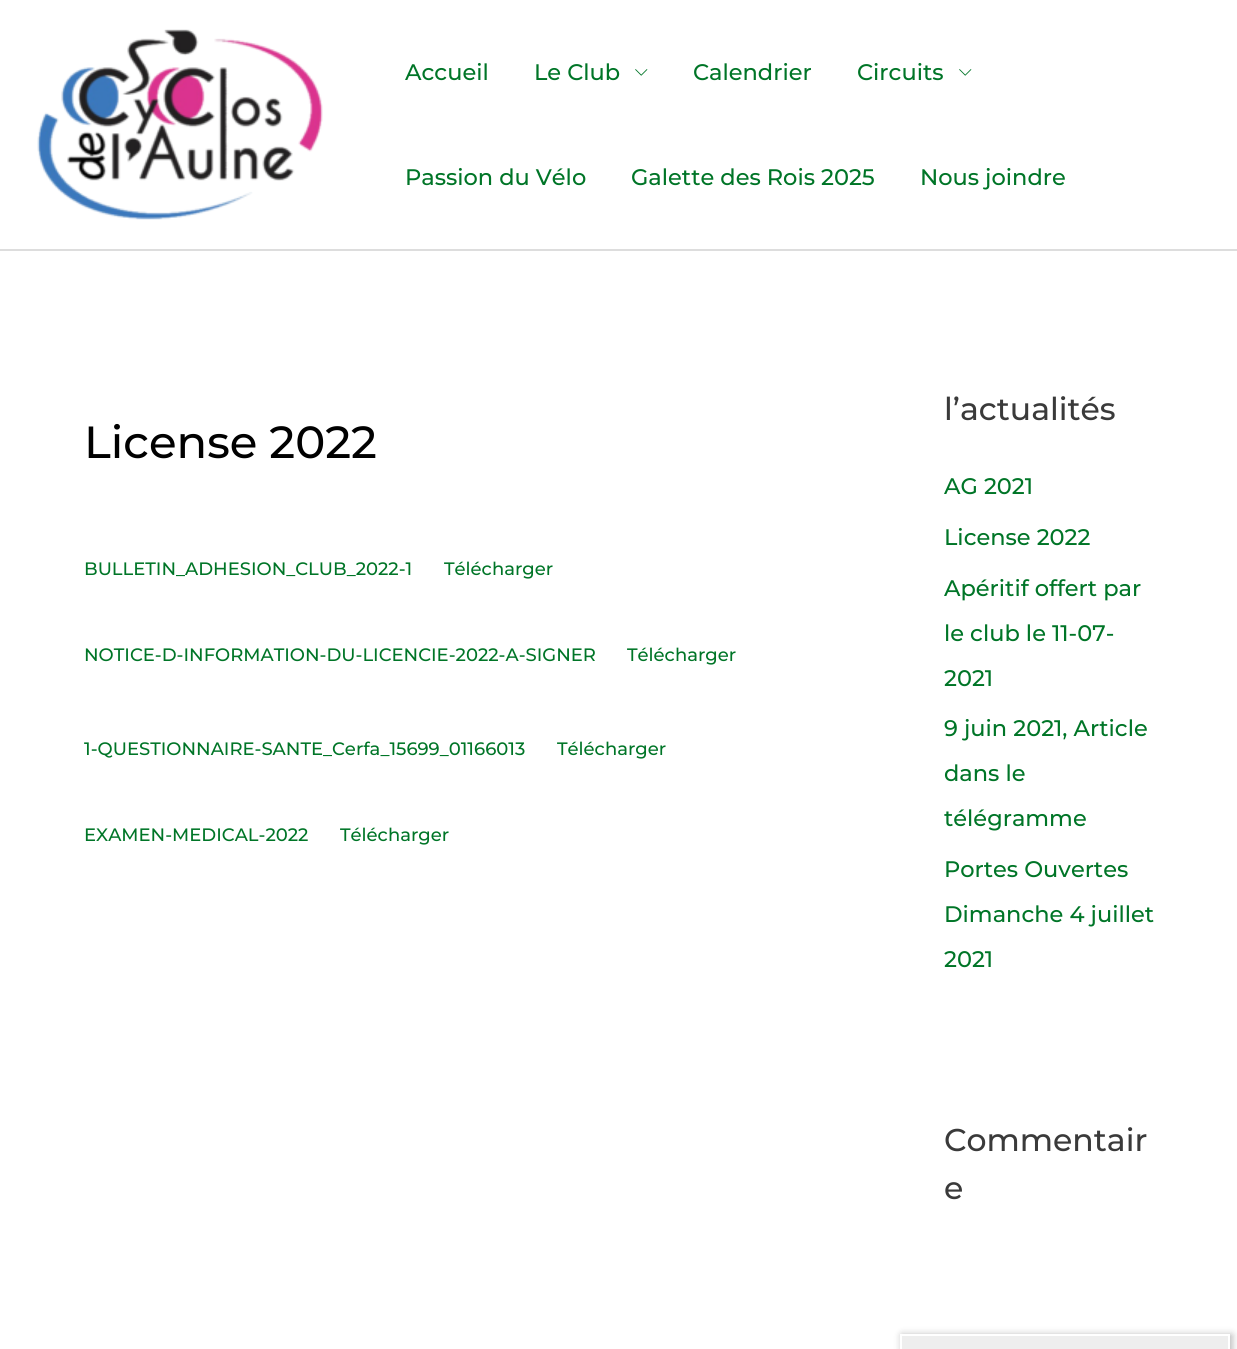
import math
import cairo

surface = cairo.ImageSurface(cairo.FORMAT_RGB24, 1237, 1349)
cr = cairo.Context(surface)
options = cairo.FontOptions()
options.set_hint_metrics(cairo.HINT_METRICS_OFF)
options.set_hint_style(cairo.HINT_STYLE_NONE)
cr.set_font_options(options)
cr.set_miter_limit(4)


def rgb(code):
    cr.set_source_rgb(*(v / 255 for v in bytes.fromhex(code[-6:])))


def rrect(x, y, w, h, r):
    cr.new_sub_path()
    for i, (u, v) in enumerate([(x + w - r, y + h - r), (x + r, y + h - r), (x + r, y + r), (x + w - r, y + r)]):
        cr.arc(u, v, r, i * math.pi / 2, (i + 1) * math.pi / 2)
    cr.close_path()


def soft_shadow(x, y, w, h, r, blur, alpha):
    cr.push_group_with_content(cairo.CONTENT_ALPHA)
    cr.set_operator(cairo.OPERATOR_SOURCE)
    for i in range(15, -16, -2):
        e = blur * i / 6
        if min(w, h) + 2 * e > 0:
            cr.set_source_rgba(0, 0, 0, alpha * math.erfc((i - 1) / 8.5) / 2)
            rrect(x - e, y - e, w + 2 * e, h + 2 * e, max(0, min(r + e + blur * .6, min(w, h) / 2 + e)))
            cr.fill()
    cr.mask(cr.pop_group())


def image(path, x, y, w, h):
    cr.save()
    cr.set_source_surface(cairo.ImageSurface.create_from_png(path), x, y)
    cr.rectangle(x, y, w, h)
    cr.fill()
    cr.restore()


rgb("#ffffff")
cr.paint()
rgb("#dddddd")
cr.rectangle(0, 249, 1237, 2)
cr.fill()
image("img/1.png", 37, 29, 286, 191)
image("img/2.png", 635, 69, 13, 7)
image("img/2.png", 959, 69, 13, 7)
rgb("#000000")
soft_shadow(902, 1335, 330, 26, 0, 4, 0.3)
rgb("#eeeeee")
cr.rectangle(901, 1335, 328, 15)
cr.fill_preserve()
rgb("#ffffff")
cr.stroke()
cr.select_font_face("Montserrat Medium")
cr.set_font_size(22.5)
rgb("#007527")
for x, y, s in [
    (405, 80, "Accueil"),
    (534, 80, "Le Club"),
    (693, 80, "Calendrier"),
    (857, 80, "Circuits"),
    (405, 185, "Passion du Vélo"),
    (631, 185, "Galette des Rois 2025"),
    (920, 185, "Nous joindre"),
]:
    cr.move_to(x, y)
    cr.show_text(s)
cr.set_font_size(45)
rgb("#000000")
cr.move_to(84, 458)
cr.show_text("License 2022")
cr.set_font_size(18)
rgb("#007527")
for x, y, s in [
    (84, 575, "BULLETIN_ADHESION_CLUB_2022-1"),
    (444, 575, "Télécharger"),
    (84, 661, "NOTICE-D-INFORMATION-DU-LICENCIE-2022-A-SIGNER"),
    (627, 661, "Télécharger"),
    (84, 755, "1-QUESTIONNAIRE-SANTE_Cerfa_15699_01166013"),
    (557, 755, "Télécharger"),
    (84, 841, "EXAMEN-MEDICAL-2022"),
    (340, 841, "Télécharger"),
]:
    cr.move_to(x, y)
    cr.show_text(s)
cr.set_font_size(31.5)
rgb("#3a3a3a")
cr.move_to(944, 420)
cr.show_text("l’actualités")
cr.set_font_size(22.5)
rgb("#007527")
for x, y, s in [
    (944, 494, "AG 2021"),
    (944, 545, "License 2022"),
    (944, 596, "Apéritif offert par"),
    (944, 641, "le club le 11-07-"),
    (944, 686, "2021"),
    (944, 736, "9 juin 2021, Article"),
    (944, 781, "dans le"),
    (944, 826, "télégramme"),
    (944, 877, "Portes Ouvertes"),
    (944, 922, "Dimanche 4 juillet"),
    (944, 967, "2021"),
]:
    cr.move_to(x, y)
    cr.show_text(s)
cr.set_font_size(31.5)
rgb("#3a3a3a")
cr.move_to(944, 1151)
cr.show_text("Commentair")
cr.move_to(944, 1199)
cr.show_text("e")
surface.write_to_png("page.png")
